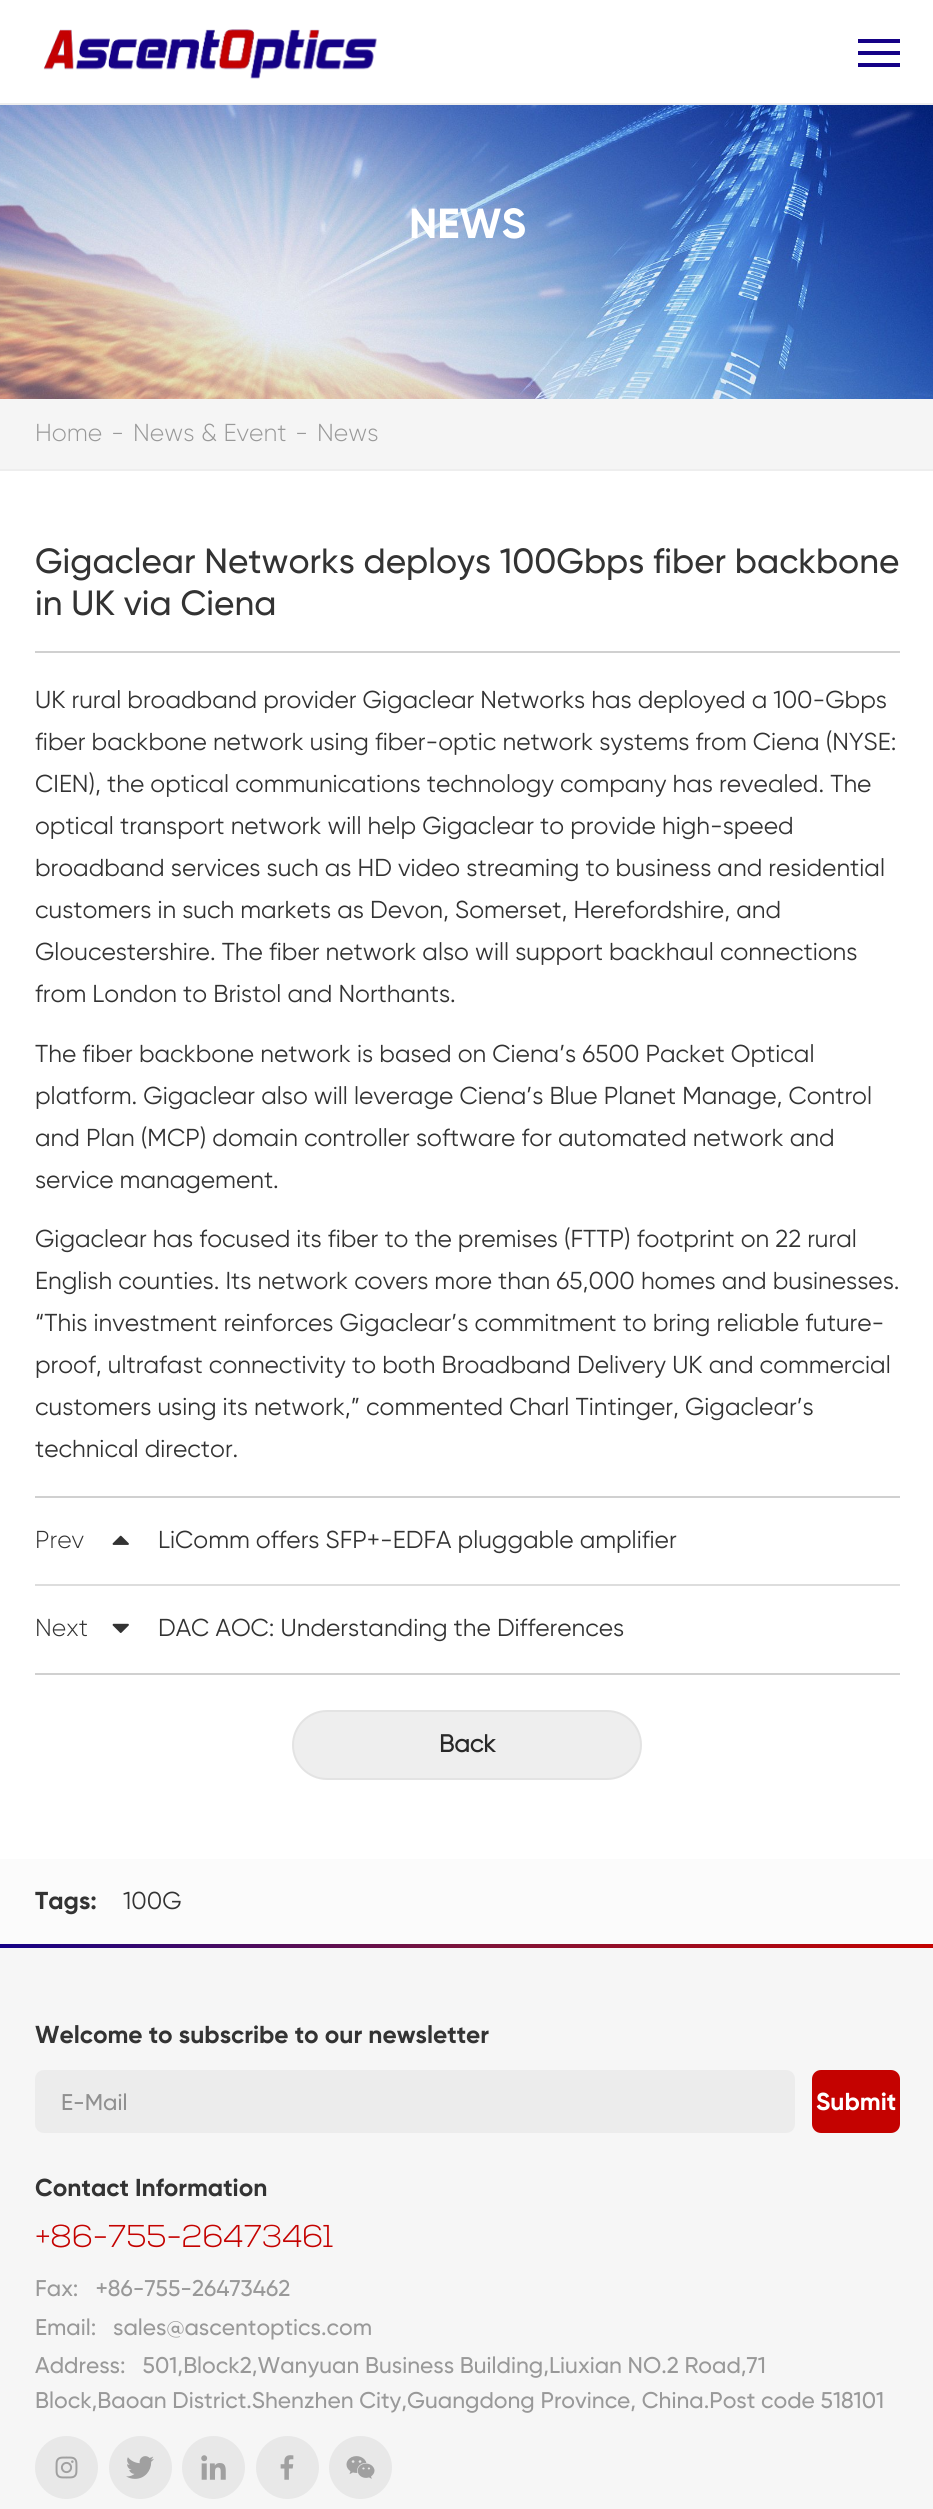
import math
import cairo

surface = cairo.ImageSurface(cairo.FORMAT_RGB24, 933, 2509)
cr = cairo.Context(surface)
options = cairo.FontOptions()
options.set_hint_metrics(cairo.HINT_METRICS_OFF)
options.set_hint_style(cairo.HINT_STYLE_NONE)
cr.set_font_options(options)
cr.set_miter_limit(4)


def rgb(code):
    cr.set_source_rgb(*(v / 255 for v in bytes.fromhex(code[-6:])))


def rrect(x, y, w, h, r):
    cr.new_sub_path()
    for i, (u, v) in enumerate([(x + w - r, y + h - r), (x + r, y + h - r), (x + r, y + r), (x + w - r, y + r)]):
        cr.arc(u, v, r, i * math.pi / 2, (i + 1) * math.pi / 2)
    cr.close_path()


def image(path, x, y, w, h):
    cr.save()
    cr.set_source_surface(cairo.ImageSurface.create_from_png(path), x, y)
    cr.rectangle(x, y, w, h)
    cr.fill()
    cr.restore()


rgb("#ffffff")
cr.paint()
rgb("#eeeeee")
cr.rectangle(0, 103, 933, 2)
cr.fill()
image("img/1.png", 43, 29, 334, 50)
for x, y, w, h, color in [
    (858, 39, 42, 4, "#150186"),
    (858, 51, 42, 4, "#150186"),
    (858, 63, 42, 4, "#150186"),
]:
    rgb(color)
    cr.rectangle(x, y, w, h)
    cr.fill()
image("img/2.png", 0, 105, 933, 294)
for x, y, w, h, color in [
    (0, 399, 933, 70, "#f5f5f5"),
    (0, 469, 933, 2, "#eeeeee"),
    (35, 651, 865, 2, "#d0d0d0"),
    (35, 1496, 865, 2, "#d0d0d0"),
    (35, 1673, 865, 2, "#d0d0d0"),
    (35, 1584, 865, 2, "#dddddd"),
]:
    rgb(color)
    cr.rectangle(x, y, w, h)
    cr.fill()
image("img/3.png", 112, 1535, 17, 10)
image("img/4.png", 112, 1623, 17, 10)
rgb("#eeeeee")
rrect(293, 1711, 348, 68, 34)
cr.fill_preserve()
rgb("#e3e3e3")
cr.stroke()
rgb("#fbfbfb")
cr.rectangle(0, 1859, 933, 85)
cr.fill()
gradient = cairo.LinearGradient(0, 1946, 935, 1946)
gradient.add_color_stop_rgba(0, 0.082, 0.004, 0.525, 1)
gradient.add_color_stop_rgba(0.5, 0.49, 0.078, 0.227, 1)
gradient.add_color_stop_rgba(1, 0.769, 0.008, 0, 1)
cr.set_source(gradient)
cr.rectangle(0, 1944, 933, 4)
cr.fill()
rgb("#f6f6f6")
cr.rectangle(0, 1948, 933, 561)
cr.fill()
rgb("#ececec")
rrect(35, 2070, 760, 63, 9)
cr.fill()
rgb("#c40200")
rrect(812, 2070, 88, 63, 9)
cr.fill()
rgb("#e8e8e8")
cr.arc(66.5, 2467.5, 31.5, 0, 2 * math.pi)
cr.fill()
image("img/5.png", 55, 2456, 23, 23)
cr.arc(140.5, 2467.5, 31.5, 0, 2 * math.pi)
cr.fill()
image("img/6.png", 126, 2456, 28, 23)
cr.arc(213.5, 2467.5, 31.5, 0, 2 * math.pi)
cr.fill()
image("img/7.png", 201, 2455, 25, 25)
cr.arc(287.5, 2467.5, 31.5, 0, 2 * math.pi)
cr.fill()
image("img/8.png", 280, 2455, 14, 25)
cr.arc(360.5, 2467.5, 31.5, 0, 2 * math.pi)
cr.fill()
image("img/9.png", 346, 2456, 29, 23)
cr.select_font_face("Gilroy", cairo.FONT_SLANT_NORMAL, cairo.FONT_WEIGHT_BOLD)
cr.set_font_size(42)
rgb("#ffffff")
cr.move_to(409, 238)
cr.show_text("NEWS")
cr.select_font_face("Gilroy Light")
cr.set_font_size(24.5)
rgb("#999999")
for x, y, s in [
    (35, 441, "Home"),
    (111, 441, "-"),
    (133, 441, "News & Event"),
    (295, 441, "-"),
    (317, 441, "News"),
]:
    cr.move_to(x, y)
    cr.show_text(s)
cr.select_font_face("Gilroy Medium")
cr.set_font_size(35)
rgb("#333333")
cr.move_to(35, 573)
cr.show_text("Gigaclear Networks deploys 100Gbps fiber backbone")
cr.move_to(35, 615)
cr.show_text("in UK via Ciena")
cr.select_font_face("Gilroy")
cr.set_font_size(24.5)
for x, y, s in [
    (35, 708, "UK rural broadband provider Gigaclear Networks has deployed a 100-Gbps"),
    (35, 750, "fiber backbone network using fiber-optic network systems from Ciena (NYSE:"),
    (35, 792, "CIEN), the optical communications technology company has revealed. The"),
    (35, 834, "optical transport network will help Gigaclear to provide high-speed"),
    (35, 876, "broadband services such as HD video streaming to business and residential"),
    (35, 918, "customers in such markets as Devon, Somerset, Herefordshire, and"),
    (35, 960, "Gloucestershire. The fiber network also will support backhaul connections"),
    (35, 1002, "from London to Bristol and Northants."),
    (35, 1062, "The fiber backbone network is based on Ciena’s 6500 Packet Optical"),
    (35, 1104, "platform. Gigaclear also will leverage Ciena’s Blue Planet Manage, Control"),
    (35, 1146, "and Plan (MCP) domain controller software for automated network and"),
    (35, 1188, "service management."),
    (35, 1247, "Gigaclear has focused its fiber to the premises (FTTP) footprint on 22 rural"),
    (35, 1289, "English counties. Its network covers more than 65,000 homes and businesses."),
    (35, 1331, "“This investment reinforces Gigaclear’s commitment to bring reliable future-"),
    (35, 1373, "proof, ultrafast connectivity to both Broadband Delivery UK and commercial"),
    (35, 1415, "customers using its network,” commented Charl Tintinger, Gigaclear’s"),
    (35, 1457, "technical director."),
]:
    cr.move_to(x, y)
    cr.show_text(s)
cr.select_font_face("Gilroy Light")
cr.move_to(35, 1548)
cr.show_text("Prev")
cr.select_font_face("Gilroy")
cr.move_to(158, 1548)
cr.show_text("LiComm offers SFP+-EDFA pluggable amplifier")
cr.select_font_face("Gilroy Light")
cr.move_to(35, 1636)
cr.show_text("Next")
cr.select_font_face("Gilroy")
cr.move_to(158, 1636)
cr.show_text("DAC AOC: Understanding the Differences")
cr.select_font_face("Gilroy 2", cairo.FONT_SLANT_NORMAL, cairo.FONT_WEIGHT_BOLD)
rgb("#282828")
cr.move_to(439, 1752)
cr.show_text("Back")
cr.select_font_face("Gilroy", cairo.FONT_SLANT_NORMAL, cairo.FONT_WEIGHT_BOLD)
rgb("#333333")
cr.move_to(35, 1909)
cr.show_text("Tags:")
cr.select_font_face("Gilroy")
cr.move_to(123, 1909)
cr.show_text("100G")
cr.select_font_face("Gilroy", cairo.FONT_SLANT_NORMAL, cairo.FONT_WEIGHT_BOLD)
cr.move_to(35, 2043)
cr.show_text("Welcome to subscribe to our newsletter")
cr.select_font_face("Gilroy Medium")
cr.set_font_size(22.75)
rgb("#909090")
cr.move_to(61, 2110)
cr.show_text("E-Mail")
cr.select_font_face("Gilroy", cairo.FONT_SLANT_NORMAL, cairo.FONT_WEIGHT_BOLD)
cr.set_font_size(24.5)
rgb("#ffffff")
cr.move_to(816, 2110)
cr.show_text("Submit")
rgb("#333333")
cr.move_to(35, 2196)
cr.show_text("Contact Information")
cr.select_font_face("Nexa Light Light")
cr.set_font_size(31.5)
rgb("#c40200")
cr.move_to(35, 2247)
cr.show_text("+86-755-26473461")
cr.select_font_face("Gilroy Medium")
cr.set_font_size(22.75)
rgb("#999999")
for x, y, s in [
    (35, 2296, "Fax:   +86-755-26473462"),
    (35, 2335, "Email:"),
    (113, 2335, "sales@ascentoptics.com"),
    (35, 2373, "Address:   501,Block2,Wanyuan Business Building,Liuxian NO.2 Road,71"),
    (35, 2408, "Block,Baoan District.Shenzhen City,Guangdong Province, China.Post code 518101"),
]:
    cr.move_to(x, y)
    cr.show_text(s)
surface.write_to_png("page.png")
